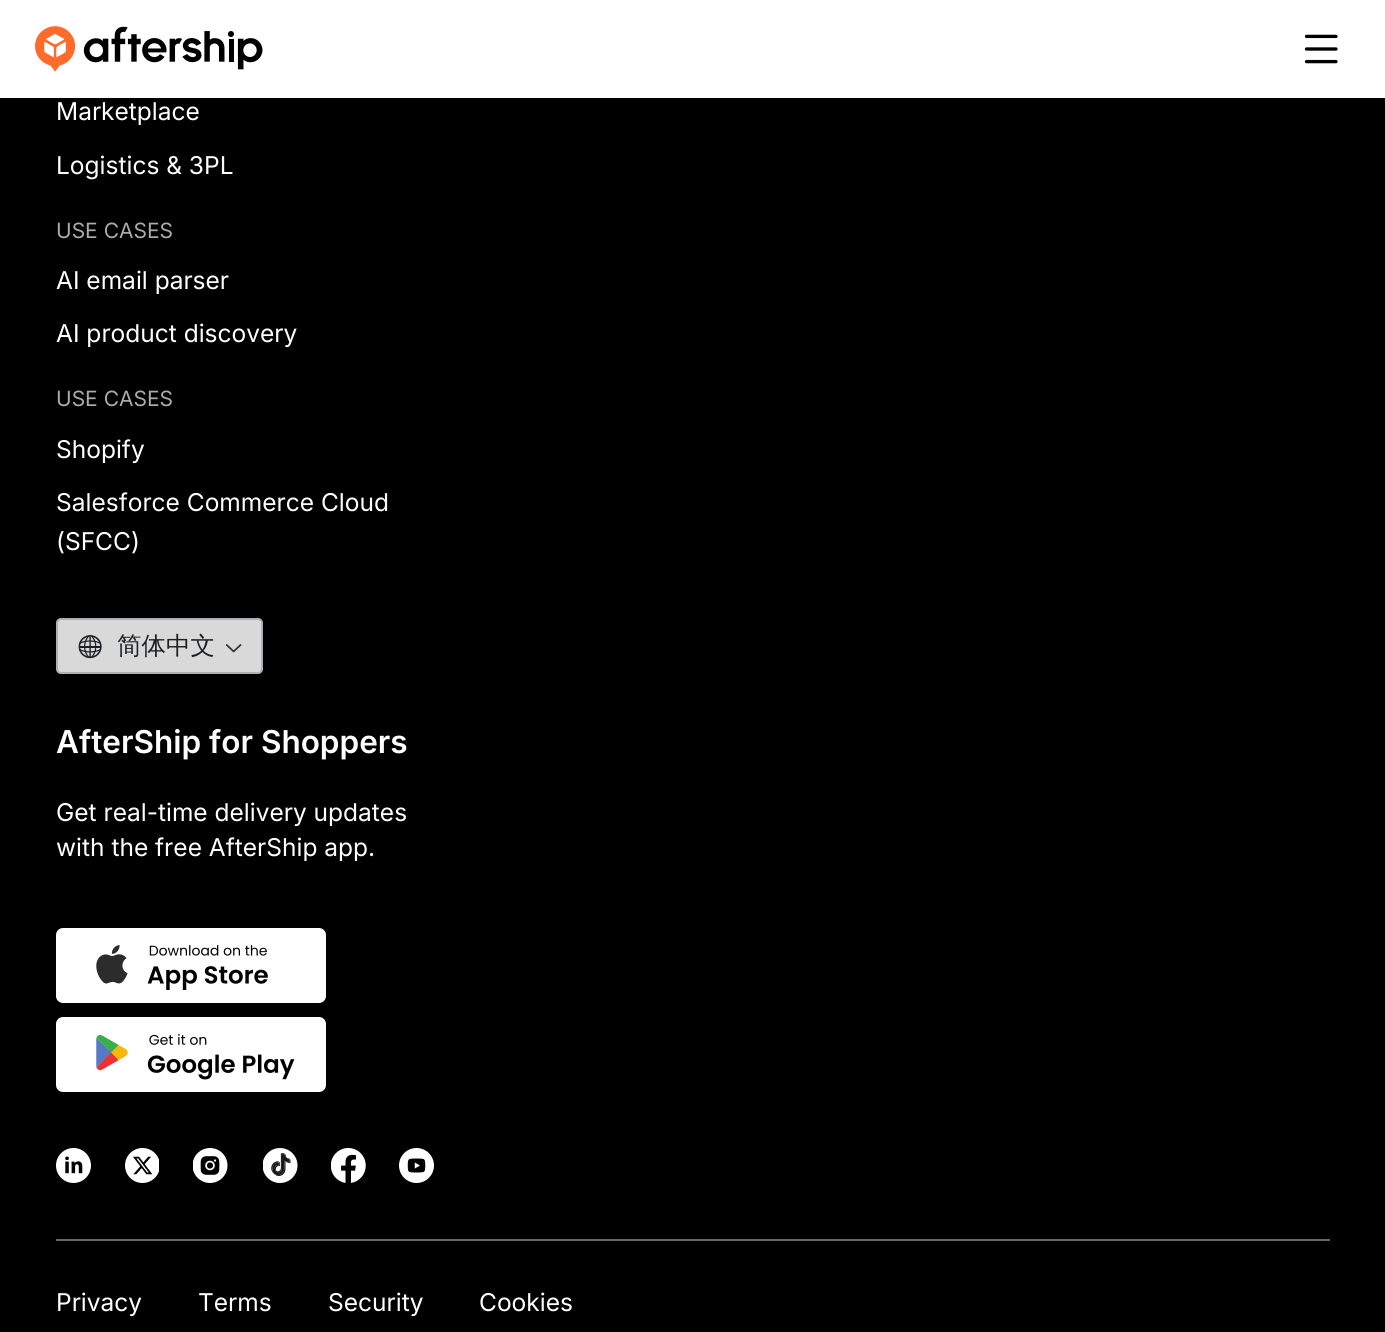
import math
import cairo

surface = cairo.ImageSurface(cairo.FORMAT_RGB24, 1385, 1332)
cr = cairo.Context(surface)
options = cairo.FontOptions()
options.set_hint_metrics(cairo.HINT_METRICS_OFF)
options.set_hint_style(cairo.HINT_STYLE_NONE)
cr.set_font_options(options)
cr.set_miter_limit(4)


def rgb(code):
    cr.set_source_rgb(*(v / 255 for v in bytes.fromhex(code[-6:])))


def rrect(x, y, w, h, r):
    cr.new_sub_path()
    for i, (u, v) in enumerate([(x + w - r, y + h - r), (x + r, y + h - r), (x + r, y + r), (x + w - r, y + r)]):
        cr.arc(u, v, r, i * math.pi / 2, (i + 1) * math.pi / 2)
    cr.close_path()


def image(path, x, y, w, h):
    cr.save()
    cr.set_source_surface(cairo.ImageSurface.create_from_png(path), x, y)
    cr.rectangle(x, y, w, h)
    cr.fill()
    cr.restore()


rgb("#000000")
cr.paint()
rgb("#ffffff")
cr.rectangle(0, 0, 1385, 98)
cr.fill()
image("img/1.png", 35, 26, 228, 46)
image("img/2.png", 1304, 34, 34, 30)
rgb("#d9d9d9")
rrect(56, 618, 207, 56, 5)
cr.fill()
rrect(57, 619, 205, 54, 4)
cr.set_source_rgba(0, 0.024, 0.18, 0.2)
cr.stroke()
image("img/3.png", 78, 635, 24, 24)
image("img/4.png", 226, 644, 16, 9)
image("img/5.png", 56, 928, 270, 75)
image("img/6.png", 56, 1017, 270, 75)
image("img/7.png", 56, 1148, 35, 35)
image("img/8.png", 125, 1148, 34, 35)
image("img/9.png", 193, 1148, 35, 35)
image("img/10.png", 263, 1148, 35, 35)
image("img/11.png", 331, 1148, 35, 35)
image("img/12.png", 399, 1148, 35, 35)
rgb("#666666")
cr.rectangle(56, 1239, 1274, 2)
cr.fill()
cr.select_font_face("Inter")
cr.set_font_size(24.5)
rgb("#ffffff")
cr.move_to(56, 120)
cr.show_text("Marketplace")
cr.move_to(56, 174)
cr.show_text("Logistics & 3PL")
cr.set_font_size(21)
rgb("#ababab")
cr.move_to(56, 238)
cr.show_text("USE CASES")
cr.set_font_size(24.5)
rgb("#ffffff")
cr.move_to(56, 289)
cr.show_text("AI email parser")
cr.move_to(56, 342)
cr.show_text("AI product discovery")
cr.set_font_size(21)
rgb("#ababab")
cr.move_to(56, 406)
cr.show_text("USE CASES")
cr.set_font_size(24.5)
rgb("#ffffff")
for x, y, s in [
    (56, 458, "Shopify"),
    (56, 511, "Salesforce Commerce Cloud"),
    (56, 550, "(SFCC)"),
]:
    cr.move_to(x, y)
    cr.show_text(s)
cr.select_font_face("WenQuanYi Zen Hei Medium")
rgb("#1c2024")
cr.move_to(117, 654)
cr.show_text("简体中文")
cr.select_font_face("Inter SemiBold")
cr.set_font_size(31.5)
rgb("#ffffff")
cr.move_to(56, 753)
cr.show_text("AfterShip for Shoppers")
cr.select_font_face("Inter")
cr.set_font_size(24.5)
for x, y, s in [
    (56, 821, "Get real-time delivery updates"),
    (56, 856, "with the free AfterShip app."),
    (56, 1311, "Privacy"),
    (198, 1311, "Terms"),
    (328, 1311, "Security"),
    (479, 1311, "Cookies"),
]:
    cr.move_to(x, y)
    cr.show_text(s)
surface.write_to_png("page.png")
